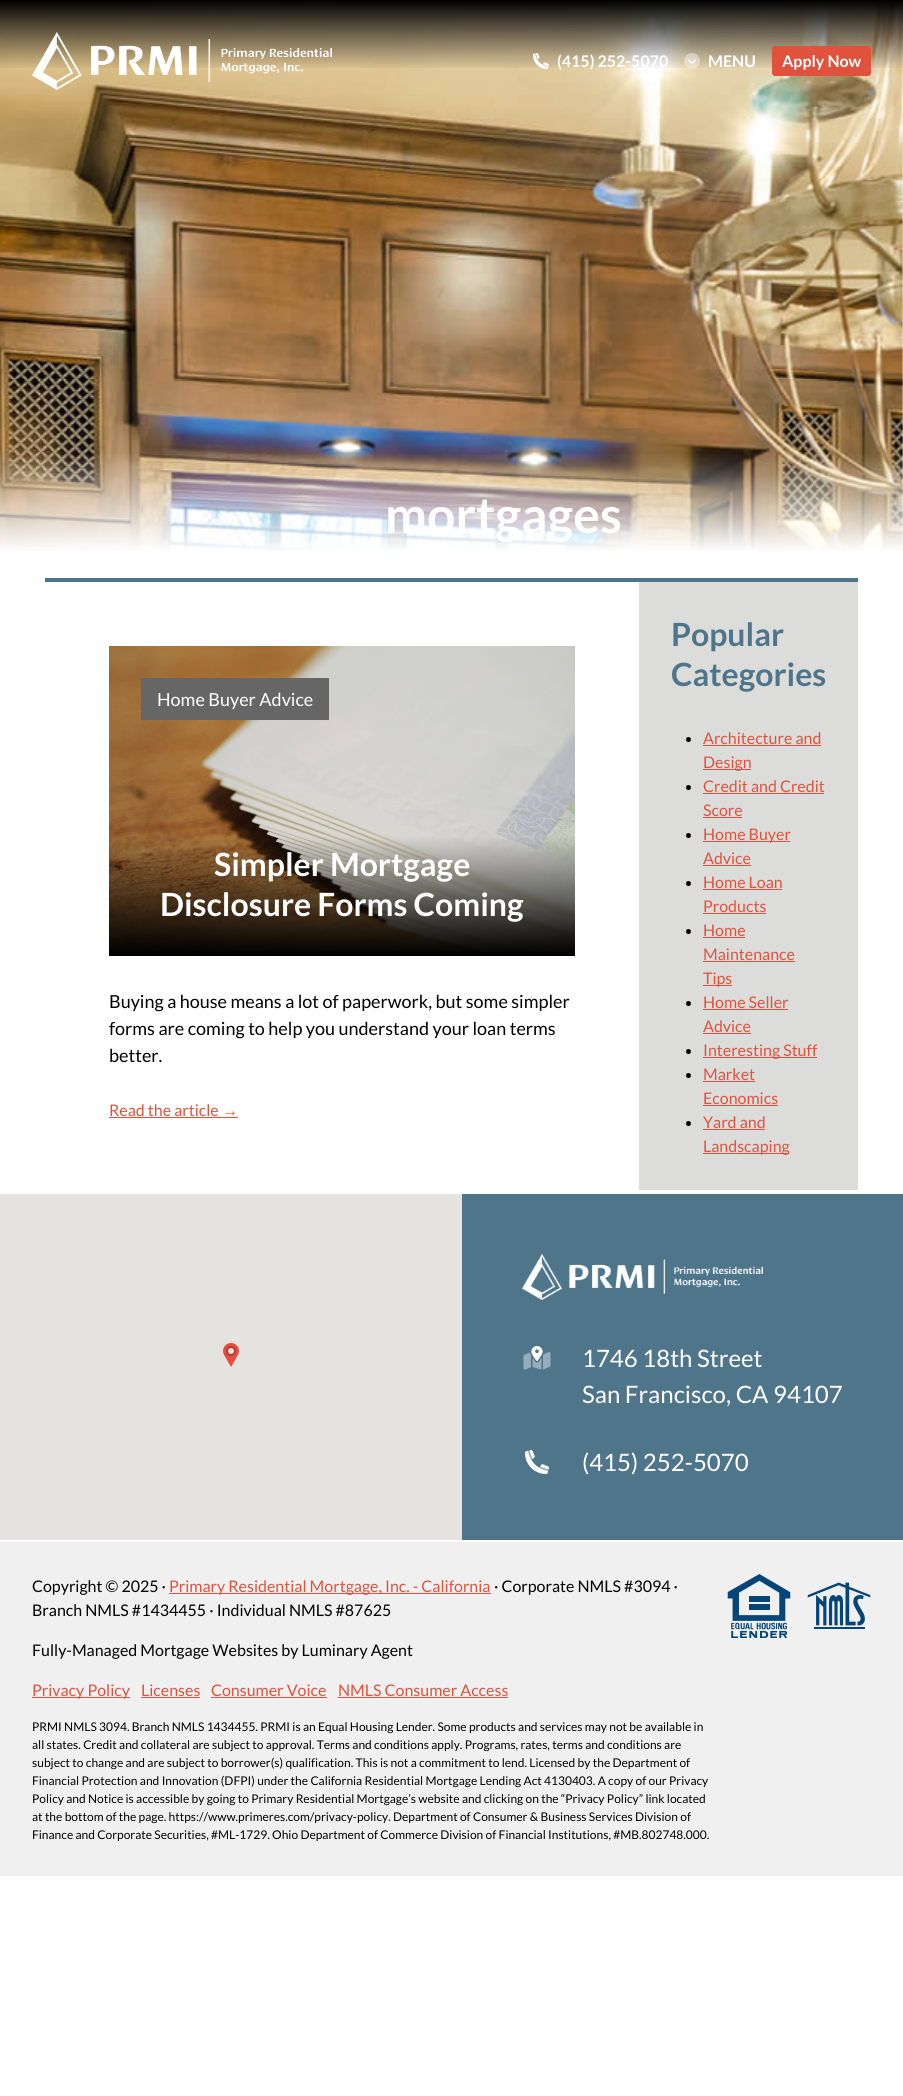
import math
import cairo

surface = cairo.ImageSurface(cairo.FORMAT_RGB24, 903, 2096)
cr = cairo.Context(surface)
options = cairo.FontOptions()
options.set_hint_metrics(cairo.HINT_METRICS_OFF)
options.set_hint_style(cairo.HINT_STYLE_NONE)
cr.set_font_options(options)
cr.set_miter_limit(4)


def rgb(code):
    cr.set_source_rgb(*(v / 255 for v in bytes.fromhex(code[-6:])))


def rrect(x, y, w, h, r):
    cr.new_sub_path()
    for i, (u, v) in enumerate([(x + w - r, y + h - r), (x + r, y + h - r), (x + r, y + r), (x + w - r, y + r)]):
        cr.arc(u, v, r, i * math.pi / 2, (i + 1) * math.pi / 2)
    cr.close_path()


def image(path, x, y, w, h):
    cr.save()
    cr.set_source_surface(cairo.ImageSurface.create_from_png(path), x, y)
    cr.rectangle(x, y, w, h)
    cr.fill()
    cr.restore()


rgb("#ffffff")
cr.paint()
image("img/4.png", 0, 0, 903, 551)
gradient = cairo.LinearGradient(452, 0, 452, 70)
gradient.add_color_stop_rgba(0, 0, 0, 0, 1)
gradient.add_color_stop_rgba(1, 0, 0, 0, 0)
cr.set_source(gradient)
cr.rectangle(0, 0, 903, 68)
cr.fill()
image("img/1.png", 32, 32, 300, 58)
image("img/2.png", 533, 53, 16, 16)
image("img/3.png", 684, 53, 16, 16)
rgb("#e1523d")
rrect(772, 46, 99, 30, 3)
cr.fill()
gradient = cairo.LinearGradient(452, 352, 452, 552)
gradient.add_color_stop_rgba(0.5, 1, 1, 1, 0)
gradient.add_color_stop_rgba(1, 1, 1, 1, 1)
cr.set_source(gradient)
cr.rectangle(0, 454, 903, 97)
cr.fill()
rgb("#4f758b")
cr.rectangle(45, 578, 813, 4)
cr.fill()
image("img/5.png", 109, 646, 466, 310)
for x, y, w, h, color in [
    (141, 678, 188, 42, "#666666"),
    (109, 1117, 129, 1, "#e1523d"),
    (639, 582, 219, 608, "#dcdcda"),
]:
    rgb(color)
    cr.rectangle(x, y, w, h)
    cr.fill()
rgb("#000000")
cr.arc(688.5, 739.5, 2.5, 0, 2 * math.pi)
cr.fill()
rgb("#e1523d")
cr.rectangle(703, 745, 118, 1)
cr.fill()
cr.rectangle(703, 769, 48, 1)
cr.fill()
rgb("#000000")
cr.arc(688.5, 787.5, 2.5, 0, 2 * math.pi)
cr.fill()
rgb("#e1523d")
cr.rectangle(703, 793, 121, 1)
cr.fill()
cr.rectangle(703, 817, 39, 1)
cr.fill()
rgb("#000000")
cr.arc(688.5, 835.5, 2.5, 0, 2 * math.pi)
cr.fill()
rgb("#e1523d")
cr.rectangle(703, 841, 87, 1)
cr.fill()
cr.rectangle(703, 865, 48, 1)
cr.fill()
rgb("#000000")
cr.arc(688.5, 883.5, 2.5, 0, 2 * math.pi)
cr.fill()
rgb("#e1523d")
cr.rectangle(703, 889, 79, 1)
cr.fill()
cr.rectangle(703, 913, 63, 1)
cr.fill()
rgb("#000000")
cr.arc(688.5, 931.5, 2.5, 0, 2 * math.pi)
cr.fill()
for x, y, w, h, color in [
    (703, 937, 42, 1, "#e1523d"),
    (703, 961, 92, 1, "#e1523d"),
    (703, 985, 29, 1, "#e1523d"),
]:
    rgb(color)
    cr.rectangle(x, y, w, h)
    cr.fill()
rgb("#000000")
cr.arc(688.5, 1003.5, 2.5, 0, 2 * math.pi)
cr.fill()
rgb("#e1523d")
cr.rectangle(703, 1009, 85, 1)
cr.fill()
cr.rectangle(703, 1033, 48, 1)
cr.fill()
rgb("#000000")
cr.arc(688.5, 1051.5, 2.5, 0, 2 * math.pi)
cr.fill()
rgb("#e1523d")
cr.rectangle(703, 1057, 114, 1)
cr.fill()
rgb("#000000")
cr.arc(688.5, 1075.5, 2.5, 0, 2 * math.pi)
cr.fill()
rgb("#e1523d")
cr.rectangle(703, 1081, 52, 1)
cr.fill()
cr.rectangle(703, 1105, 75, 1)
cr.fill()
rgb("#000000")
cr.arc(688.5, 1123.5, 2.5, 0, 2 * math.pi)
cr.fill()
for x, y, w, h, color in [
    (703, 1129, 62, 1, "#e1523d"),
    (703, 1153, 86, 1, "#e1523d"),
    (0, 1194, 462, 346, "#e5e3df"),
]:
    rgb(color)
    cr.rectangle(x, y, w, h)
    cr.fill()
image("img/6.png", 223, 1343, 16, 24)
rgb("#4f758b")
cr.rectangle(462, 1194, 441, 346)
cr.fill()
image("img/7.png", 522, 1254, 241, 46)
image("img/8.png", 523, 1346, 28, 24)
image("img/9.png", 525, 1450, 24, 24)
for x, y, w, h, color in [
    (0, 1542, 903, 334, "#f0f0f0"),
    (169, 1593, 322, 1, "#e1523d"),
    (32, 1697, 98, 1, "#e1523d"),
    (141, 1697, 59, 1, "#e1523d"),
    (211, 1697, 116, 1, "#e1523d"),
    (338, 1697, 170, 1, "#e1523d"),
]:
    rgb(color)
    cr.rectangle(x, y, w, h)
    cr.fill()
image("img/10.png", 727, 1574, 64, 64)
image("img/11.png", 807, 1582, 64, 47)
cr.select_font_face("Lato", cairo.FONT_SLANT_NORMAL, cairo.FONT_WEIGHT_BOLD)
cr.set_font_size(16)
rgb("#ffffff")
for x, y, s in [
    (557, 67, "(415) 252-5070"),
    (708, 67, "MENU"),
    (782, 67, "Apply Now"),
]:
    cr.move_to(x, y)
    cr.show_text(s)
cr.set_font_size(50)
cr.move_to(385, 533)
cr.show_text("mortgages")
cr.select_font_face("Lato")
cr.set_font_size(18)
cr.move_to(157, 706)
cr.show_text("Home Buyer Advice")
cr.select_font_face("Lato", cairo.FONT_SLANT_NORMAL, cairo.FONT_WEIGHT_BOLD)
cr.set_font_size(32)
cr.move_to(214, 876)
cr.show_text("Simpler Mortgage")
cr.move_to(160, 916)
cr.show_text("Disclosure Forms Coming")
cr.select_font_face("Lato")
cr.set_font_size(18)
rgb("#000000")
for x, y, s in [
    (109, 1008, "Buying a house means a lot of paperwork, but some simpler"),
    (109, 1035, "forms are coming to help you understand your loan terms"),
    (109, 1062, "better."),
]:
    cr.move_to(x, y)
    cr.show_text(s)
cr.set_font_size(16)
rgb("#e1523d")
cr.move_to(109, 1116)
cr.show_text("Read the article")
cr.select_font_face("Liberation Serif")
cr.move_to(222, 1116)
cr.show_text("→")
cr.select_font_face("Lato", cairo.FONT_SLANT_NORMAL, cairo.FONT_WEIGHT_BOLD)
cr.set_font_size(32)
rgb("#4f758b")
cr.move_to(671, 646)
cr.show_text("Popular")
cr.move_to(671, 686)
cr.show_text("Categories")
cr.select_font_face("Lato")
cr.set_font_size(16)
rgb("#e1523d")
for x, y, s in [
    (703, 744, "Architecture and"),
    (703, 768, "Design"),
    (703, 792, "Credit and Credit"),
    (703, 816, "Score"),
    (703, 840, "Home Buyer"),
    (703, 864, "Advice"),
    (703, 888, "Home Loan"),
    (703, 912, "Products"),
    (703, 936, "Home"),
    (703, 960, "Maintenance"),
    (703, 984, "Tips"),
    (703, 1008, "Home Seller"),
    (703, 1032, "Advice"),
    (703, 1056, "Interesting Stuff"),
    (703, 1080, "Market"),
    (703, 1104, "Economics"),
    (703, 1128, "Yard and"),
    (703, 1152, "Landscaping"),
]:
    cr.move_to(x, y)
    cr.show_text(s)
cr.set_font_size(24)
rgb("#ffffff")
for x, y, s in [
    (582, 1367, "1746 18th Street"),
    (582, 1403, "San Francisco, CA 94107"),
    (582, 1471, "(415) 252-5070"),
]:
    cr.move_to(x, y)
    cr.show_text(s)
cr.set_font_size(16)
rgb("#000000")
cr.move_to(32, 1592)
cr.show_text("Copyright © 2025 ·")
rgb("#e1523d")
cr.move_to(169, 1592)
cr.show_text("Primary Residential Mortgage, Inc. - California")
rgb("#000000")
for x, y, s in [
    (494, 1592, "· Corporate NMLS #3094 ·"),
    (32, 1616, "Branch NMLS #1434455 · Individual NMLS #87625"),
    (32, 1656, "Fully-Managed Mortgage Websites by Luminary Agent"),
]:
    cr.move_to(x, y)
    cr.show_text(s)
rgb("#e1523d")
for x, y, s in [
    (32, 1696, "Privacy Policy"),
    (141, 1696, "Licenses"),
    (211, 1696, "Consumer Voice"),
    (338, 1696, "NMLS Consumer Access"),
]:
    cr.move_to(x, y)
    cr.show_text(s)
cr.set_font_size(12)
rgb("#000000")
for x, y, s in [
    (32, 1731, "PRMI NMLS 3094. Branch NMLS 1434455. PRMI is an Equal Housing Lender. Some products and services may not be available in"),
    (32, 1749, "all states. Credit and collateral are subject to approval. Terms and conditions apply. Programs, rates, terms and conditions are"),
    (32, 1767, "subject to change and are subject to borrower(s) qualification. This is not a commitment to lend. Licensed by the Department of"),
    (32, 1785, "Financial Protection and Innovation (DFPI) under the California Residential Mortgage Lending Act 4130403. A copy of our Privacy"),
    (32, 1803, "Policy and Notice is accessible by going to Primary Residential Mortgage’s website and clicking on the “Privacy Policy” link located"),
    (32, 1821, "at the bottom of the page. https://www.primeres.com/privacy-policy. Department of Consumer & Business Services Division of"),
    (32, 1839, "Finance and Corporate Securities, #ML-1729. Ohio Department of Commerce Division of Financial Institutions, #MB.802748.000."),
]:
    cr.move_to(x, y)
    cr.show_text(s)
surface.write_to_png("page.png")
